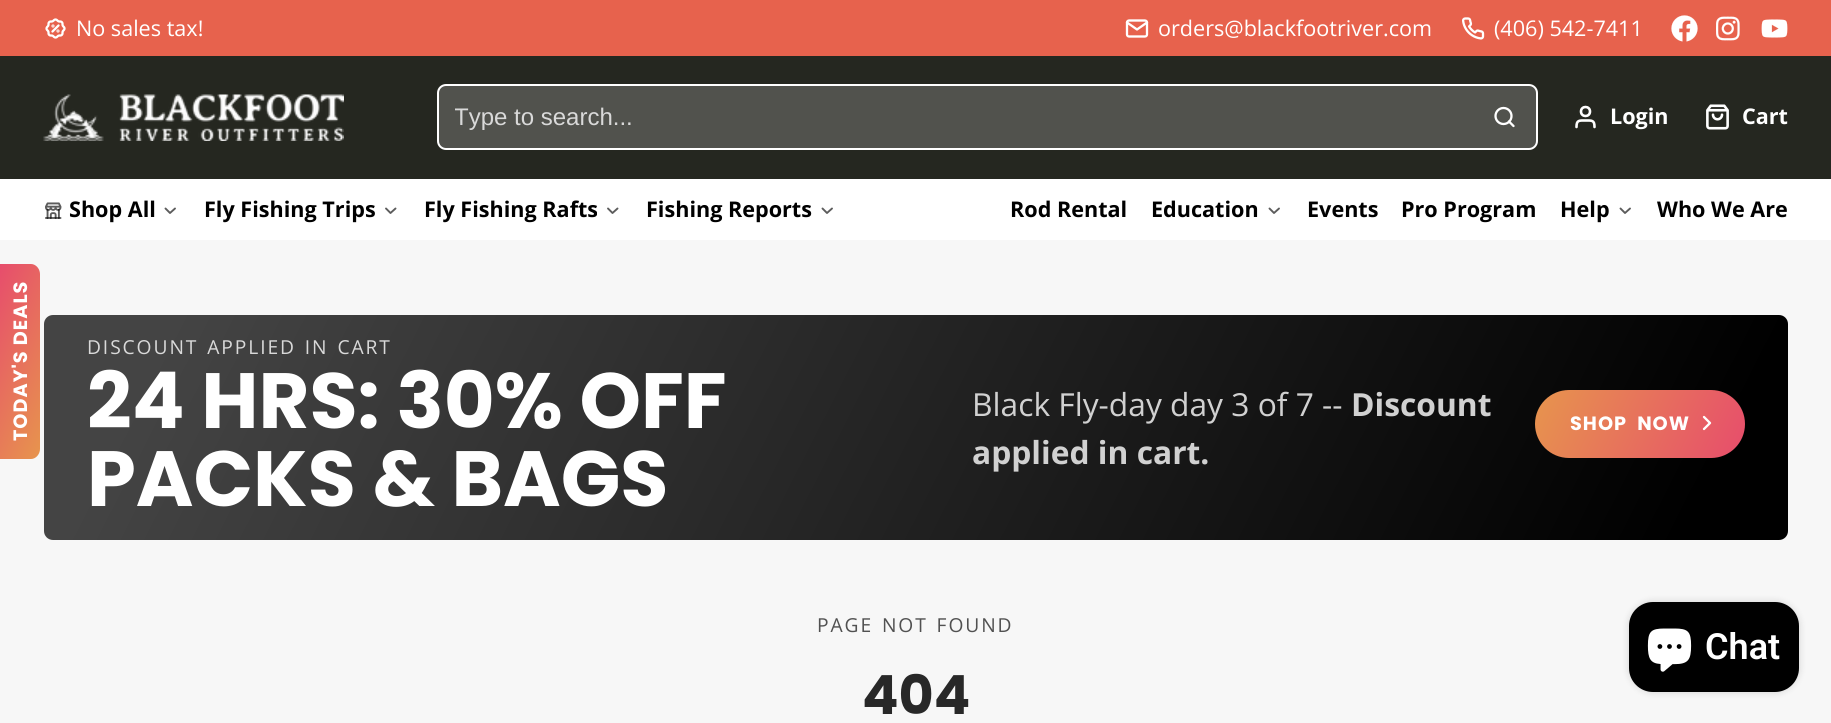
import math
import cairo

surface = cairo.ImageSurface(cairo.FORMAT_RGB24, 1831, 723)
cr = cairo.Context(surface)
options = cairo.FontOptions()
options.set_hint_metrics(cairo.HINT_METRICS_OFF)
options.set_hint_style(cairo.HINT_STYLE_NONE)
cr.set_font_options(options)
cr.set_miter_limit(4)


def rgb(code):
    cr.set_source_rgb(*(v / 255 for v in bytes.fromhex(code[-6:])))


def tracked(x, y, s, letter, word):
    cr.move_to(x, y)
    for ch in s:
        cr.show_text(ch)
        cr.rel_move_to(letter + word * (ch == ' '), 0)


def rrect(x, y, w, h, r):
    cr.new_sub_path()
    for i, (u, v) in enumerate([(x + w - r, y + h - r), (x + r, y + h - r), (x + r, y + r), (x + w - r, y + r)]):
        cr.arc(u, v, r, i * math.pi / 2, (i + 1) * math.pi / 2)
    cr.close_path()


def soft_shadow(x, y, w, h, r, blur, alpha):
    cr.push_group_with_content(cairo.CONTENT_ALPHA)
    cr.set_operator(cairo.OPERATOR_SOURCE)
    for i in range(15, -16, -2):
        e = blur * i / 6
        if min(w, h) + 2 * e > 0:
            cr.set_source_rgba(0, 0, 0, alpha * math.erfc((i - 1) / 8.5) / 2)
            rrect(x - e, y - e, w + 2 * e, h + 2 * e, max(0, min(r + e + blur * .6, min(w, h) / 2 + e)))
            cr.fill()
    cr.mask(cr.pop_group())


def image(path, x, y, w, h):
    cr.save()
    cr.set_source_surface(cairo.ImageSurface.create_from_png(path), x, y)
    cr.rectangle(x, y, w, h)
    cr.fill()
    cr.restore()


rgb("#f7f7f7")
cr.paint()
rgb("#e7624d")
cr.rectangle(0, 0, 1831, 56)
cr.fill()
image("img/1.png", 45, 18, 21, 21)
image("img/2.png", 1125, 19, 24, 19)
image("img/3.png", 1462, 17, 23, 23)
image("img/4.png", 1671, 15, 27, 27)
image("img/5.png", 1716, 16, 24, 25)
image("img/6.png", 1761, 19, 27, 19)
rgb("#252720")
cr.rectangle(0, 56, 1831, 123)
cr.fill()
image("img/7.png", 43, 94, 301, 47)
rgb("#51524d")
rrect(438, 85, 1099, 64, 8)
cr.fill_preserve()
rgb("#ffffff")
cr.stroke()
cr.arc(1503.5, 116, 8, 0, 2 * math.pi)
cr.set_line_width(2.3)
cr.stroke()
cr.new_path()
cr.move_to(1513.5, 126)
cr.line_to(1509, 121.5)
cr.set_line_cap(cairo.LINE_CAP_ROUND)
cr.set_line_join(cairo.LINE_JOIN_ROUND)
cr.stroke()
cr.new_path()
cr.move_to(1594.5, 127)
cr.curve_to(1594.5, 120, 1592, 120.5, 1585.5, 120.5)
cr.curve_to(1579, 120.5, 1576.5, 120, 1576.5, 127)
cr.set_line_width(2.6)
cr.stroke()
cr.arc(1585.5, 111.5, 4.5, 0, 2 * math.pi)
cr.set_line_cap(cairo.LINE_CAP_BUTT)
cr.set_line_join(cairo.LINE_JOIN_MITER)
cr.stroke()
image("img/8.png", 1706, 104, 23, 26)
cr.rectangle(0, 179, 1831, 61)
cr.fill()
image("img/9.png", 45, 202, 17, 17)
cr.new_path()
cr.move_to(165.5, 208.5)
cr.line_to(170, 213)
cr.line_to(175, 208.5)
rgb("#5c5c5c")
cr.set_line_width(1.9)
cr.set_line_cap(cairo.LINE_CAP_ROUND)
cr.set_line_join(cairo.LINE_JOIN_ROUND)
cr.stroke()
cr.new_path()
cr.move_to(386, 208.5)
cr.line_to(390.5, 213)
cr.line_to(395.5, 208.5)
cr.stroke()
cr.new_path()
cr.move_to(608, 208.5)
cr.line_to(612.5, 213)
cr.line_to(617.5, 208.5)
cr.stroke()
cr.new_path()
cr.move_to(822.5, 208.5)
cr.line_to(827, 213)
cr.line_to(832, 208.5)
cr.stroke()
cr.new_path()
cr.move_to(1269.5, 208.5)
cr.line_to(1274, 213)
cr.line_to(1279, 208.5)
cr.stroke()
cr.new_path()
cr.move_to(1620.5, 208.5)
cr.line_to(1625, 213)
cr.line_to(1630, 208.5)
cr.stroke()
gradient = cairo.LinearGradient(74, 387, -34, 336)
gradient.add_color_stop_rgba(0, 0.906, 0.584, 0.302, 1)
gradient.add_color_stop_rgba(1, 0.906, 0.302, 0.424, 1)
cr.set_source(gradient)
cr.new_path()
cr.move_to(31, 459)
cr.line_to(0, 459)
cr.line_to(0, 264)
cr.line_to(31, 264)
cr.curve_to(36, 264, 40, 269, 40, 274)
cr.line_to(40, 449)
cr.curve_to(40, 454, 36, 459, 31, 459)
cr.close_path()
cr.fill()
gradient = cairo.LinearGradient(178, 51, 1654, 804)
gradient.add_color_stop_rgba(0.07, 0.267, 0.267, 0.267, 1)
gradient.add_color_stop_rgba(0.94, 0, 0, 0, 1)
cr.set_source(gradient)
rrect(44, 315, 1744, 225, 9)
cr.fill()
gradient = cairo.LinearGradient(1540, 378, 1739, 470)
gradient.add_color_stop_rgba(0, 0.906, 0.584, 0.302, 1)
gradient.add_color_stop_rgba(1, 0.906, 0.302, 0.424, 1)
cr.set_source(gradient)
rrect(1535, 390, 210, 68, 34)
cr.fill()
cr.new_path()
cr.move_to(1704, 429)
cr.line_to(1710, 423)
cr.line_to(1704, 417)
rgb("#ffffff")
cr.set_line_width(2.3)
cr.stroke()
rgb("#000000")
soft_shadow(1629, 602, 170, 90, 24, 4, 0.15)
rgb("#000000")
rrect(1629, 602, 170, 90, 24)
cr.fill()
image("img/10.png", 1647, 628, 45, 44)
cr.select_font_face("Open Sans")
cr.set_font_size(21.6)
rgb("#ffffff")
for x, y, s in [
    (76, 36, "No sales tax!"),
    (1158, 36, "orders@blackfootriver.com"),
    (1494, 36, "(406) 542-7411"),
]:
    cr.move_to(x, y)
    cr.show_text(s)
cr.save()
cr.rectangle(455, 104, 1002, 27)
cr.clip()
cr.select_font_face("Liberation Sans")
cr.set_font_size(24)
rgb("#d9d9d9")
cr.move_to(454, 125)
cr.show_text("Type to search...")
cr.restore()
cr.select_font_face("Open Sans", cairo.FONT_SLANT_NORMAL, cairo.FONT_WEIGHT_BOLD)
cr.move_to(1610, 124)
cr.show_text("Login")
cr.move_to(1742, 124)
cr.show_text("Cart")
rgb("#000000")
for x, y, s in [
    (69, 217, "Shop All"),
    (204, 217, "Fly Fishing Trips"),
    (424, 217, "Fly Fishing Rafts"),
    (646, 217, "Fishing Reports"),
    (1010, 217, "Rod Rental"),
    (1151, 217, "Education"),
    (1307, 217, "Events"),
    (1401, 217, "Pro Program"),
    (1560, 217, "Help"),
    (1657, 217, "Who We Are"),
]:
    cr.move_to(x, y)
    cr.show_text(s)
cr.select_font_face("Poppins", cairo.FONT_SLANT_NORMAL, cairo.FONT_WEIGHT_BOLD)
cr.set_font_size(19.25)
rgb("#ffffff")
cr.save()
cr.translate(27, 441)
cr.rotate(-90 * math.pi / 180)
tracked(0, 0, "TODAY'S DEALS", 1, 0)
cr.restore()
cr.select_font_face("Open Sans")
rgb("#d9d9d9")
tracked(87, 354, "DISCOUNT APPLIED IN CART", 1.9, 2)
cr.select_font_face("Poppins", cairo.FONT_SLANT_NORMAL, cairo.FONT_WEIGHT_BOLD)
cr.set_font_size(78.25)
rgb("#ffffff")
cr.move_to(87, 428)
cr.show_text("24 HRS: 30% OFF")
cr.move_to(87, 506)
cr.show_text("PACKS & BAGS")
cr.select_font_face("Open Sans")
cr.set_font_size(31.75)
rgb("#d1d1d1")
cr.move_to(972, 416)
cr.show_text("Black Fly-day day 3 of 7 --")
cr.select_font_face("Open Sans", cairo.FONT_SLANT_NORMAL, cairo.FONT_WEIGHT_BOLD)
cr.move_to(1351, 416)
cr.show_text("Discount")
cr.move_to(972, 464)
cr.show_text("applied in cart.")
cr.select_font_face("Poppins", cairo.FONT_SLANT_NORMAL, cairo.FONT_WEIGHT_BOLD)
cr.set_font_size(19.25)
rgb("#ffffff")
tracked(1570, 430, "SHOP NOW", 1, 5)
cr.select_font_face("Open Sans")
rgb("#515151")
tracked(817, 632, "PAGE NOT FOUND", 1.9, 2)
cr.select_font_face("Poppins", cairo.FONT_SLANT_NORMAL, cairo.FONT_WEIGHT_BOLD)
cr.set_font_size(54)
rgb("#282828")
cr.move_to(862, 714)
cr.show_text("404")
cr.select_font_face("Roboto SemiBold")
cr.set_font_size(36)
rgb("#ffffff")
cr.move_to(1705, 659)
cr.show_text("Chat")
surface.write_to_png("page.png")
